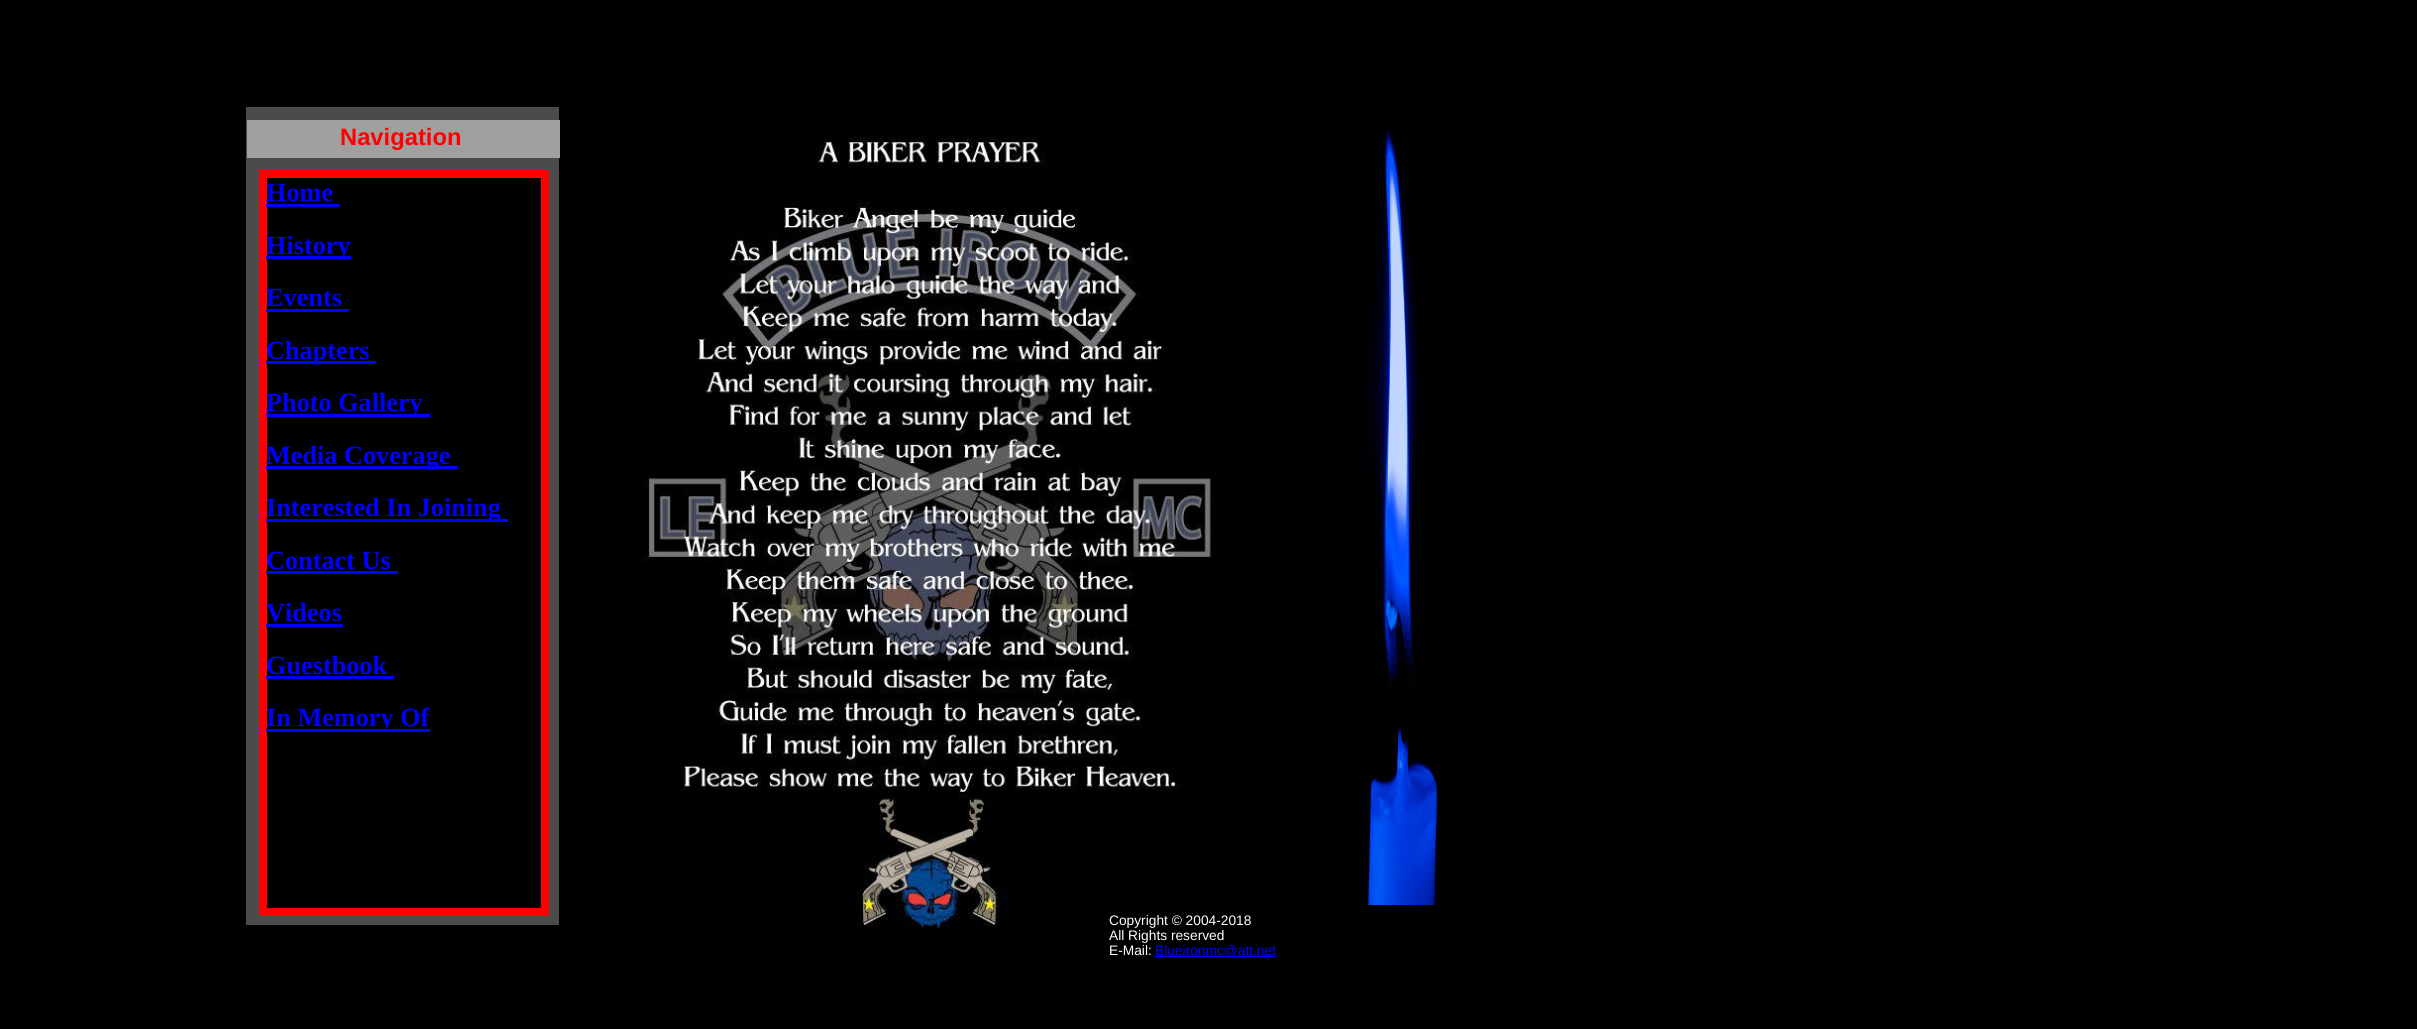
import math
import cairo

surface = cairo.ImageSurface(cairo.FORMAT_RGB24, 2417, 1029)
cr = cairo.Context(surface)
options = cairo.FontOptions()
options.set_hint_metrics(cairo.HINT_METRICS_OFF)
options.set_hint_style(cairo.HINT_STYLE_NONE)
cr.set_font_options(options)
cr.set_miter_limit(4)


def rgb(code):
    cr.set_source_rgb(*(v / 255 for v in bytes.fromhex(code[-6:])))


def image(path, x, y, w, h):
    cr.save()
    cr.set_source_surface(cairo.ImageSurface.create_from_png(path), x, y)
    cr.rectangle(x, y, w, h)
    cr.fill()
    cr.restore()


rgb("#000000")
cr.paint()
rgb("#4b4b4b")
cr.rectangle(246, 107, 313, 818)
cr.fill()
rgb("#a0a0a0")
cr.rectangle(247, 120, 313, 38)
cr.fill()
image("img/1.png", 1350, 126, 88, 779)
image("img/2.png", 642, 136, 571, 795)
rgb("#000000")
cr.rectangle(263, 174, 282, 738)
cr.fill_preserve()
rgb("#ff0000")
cr.set_line_width(8)
cr.stroke()
for x, y, w, h, color in [
    (266, 204, 74, 3, "#0000ff"),
    (266, 256, 85, 3, "#0000ff"),
    (266, 309, 83, 3, "#0000ff"),
    (266, 361, 110, 3, "#0000ff"),
    (266, 414, 164, 3, "#0000ff"),
    (266, 466, 192, 3, "#0000ff"),
    (266, 519, 242, 3, "#0000ff"),
    (266, 571, 132, 3, "#0000ff"),
    (266, 624, 77, 3, "#0000ff"),
    (266, 676, 128, 3, "#0000ff"),
    (266, 729, 164, 3, "#0000ff"),
    (1155, 956, 121, 1, "#0000ff"),
]:
    rgb(color)
    cr.rectangle(x, y, w, h)
    cr.fill()
cr.select_font_face("Liberation Sans", cairo.FONT_SLANT_NORMAL, cairo.FONT_WEIGHT_BOLD)
cr.set_font_size(23.75)
rgb("#ff0000")
cr.move_to(340, 145)
cr.show_text("Navigation")
cr.select_font_face("Liberation Serif", cairo.FONT_SLANT_NORMAL, cairo.FONT_WEIGHT_BOLD)
cr.set_font_size(26.25)
rgb("#0000ff")
for x, y, s in [
    (266, 201, "Home"),
    (266, 254, "History"),
    (266, 306, "Events"),
    (266, 359, "Chapters"),
    (266, 411, "Photo Gallery"),
    (266, 464, "Media Coverage"),
    (266, 516, "Interested In Joining"),
    (266, 569, "Contact Us"),
    (266, 621, "Videos"),
    (266, 674, "Guestbook"),
    (266, 726, "In Memory Of"),
]:
    cr.move_to(x, y)
    cr.show_text(s)
cr.select_font_face("Liberation Sans")
cr.set_font_size(13.75)
rgb("#ffffff")
for x, y, s in [
    (1109, 925, "Copyright © 2004-2018"),
    (1109, 940, "All Rights reserved"),
    (1109, 955, "E-Mail:"),
]:
    cr.move_to(x, y)
    cr.show_text(s)
rgb("#0000ff")
cr.move_to(1155, 955)
cr.show_text("Blueironmc@att.net")
surface.write_to_png("page.png")
